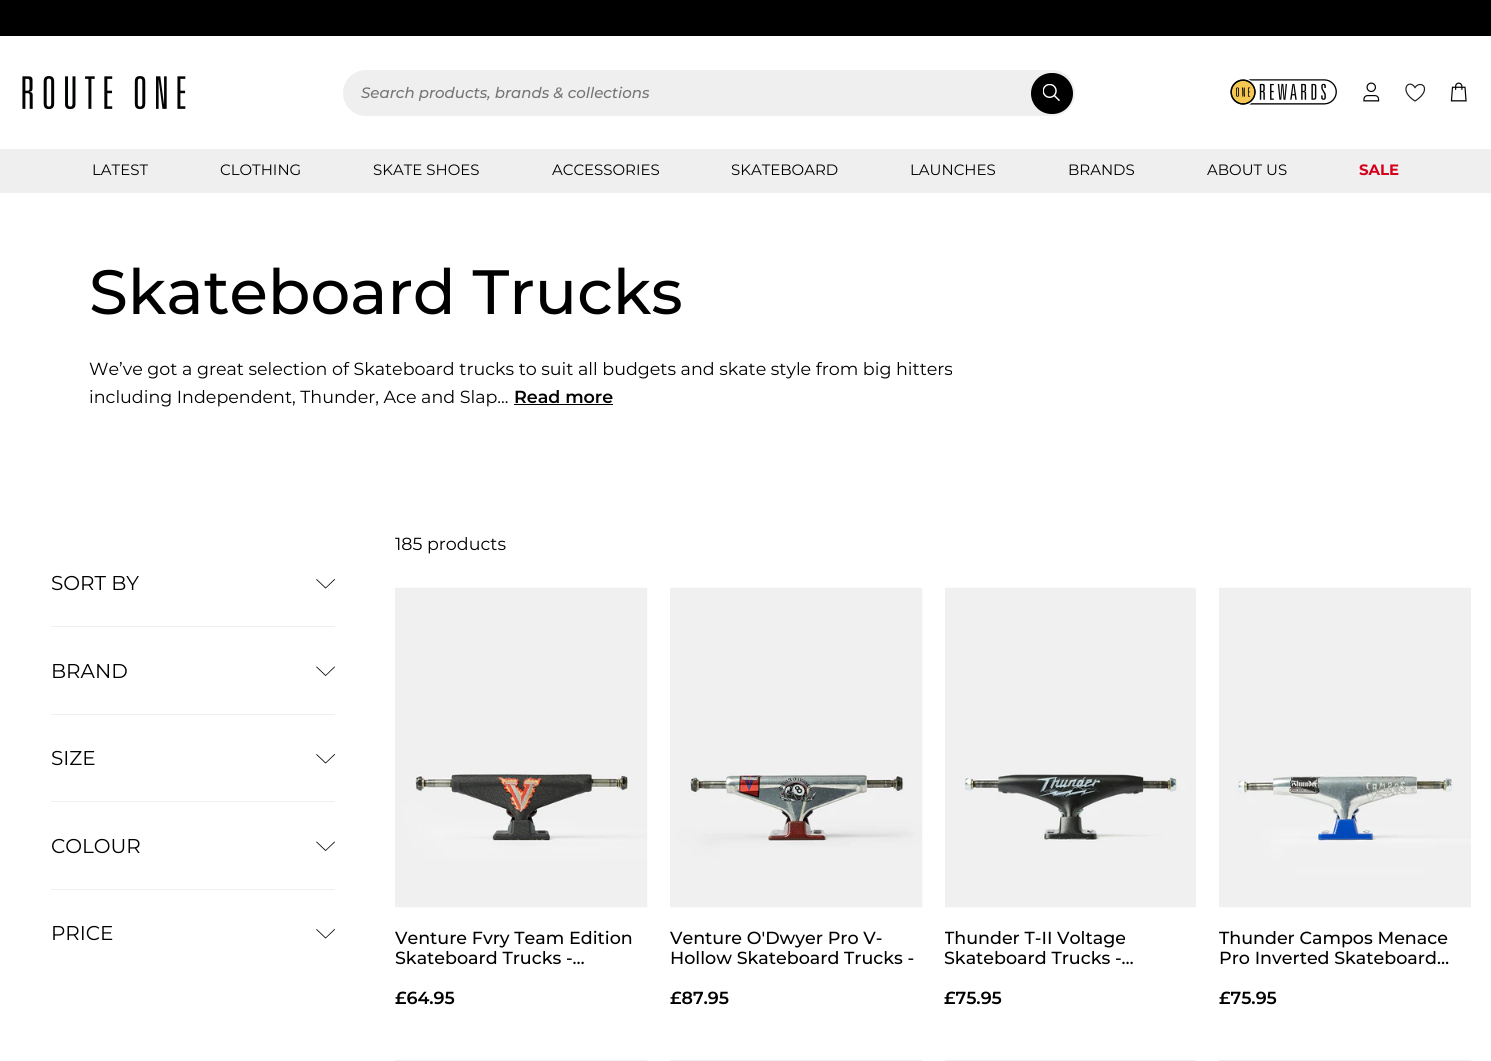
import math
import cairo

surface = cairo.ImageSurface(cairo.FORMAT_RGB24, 1491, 1061)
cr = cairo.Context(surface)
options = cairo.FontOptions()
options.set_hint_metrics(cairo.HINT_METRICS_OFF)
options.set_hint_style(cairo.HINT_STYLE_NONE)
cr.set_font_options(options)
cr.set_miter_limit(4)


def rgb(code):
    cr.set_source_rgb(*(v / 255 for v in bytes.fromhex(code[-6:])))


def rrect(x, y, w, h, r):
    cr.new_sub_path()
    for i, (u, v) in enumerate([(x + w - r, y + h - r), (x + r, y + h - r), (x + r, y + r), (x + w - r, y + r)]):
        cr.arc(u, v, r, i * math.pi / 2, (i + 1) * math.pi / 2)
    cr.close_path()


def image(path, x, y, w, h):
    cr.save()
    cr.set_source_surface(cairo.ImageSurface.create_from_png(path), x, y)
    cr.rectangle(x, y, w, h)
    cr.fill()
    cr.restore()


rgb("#ffffff")
cr.paint()
rgb("#000000")
cr.rectangle(0, 0, 1491, 36)
cr.fill()
image("img/1.png", 22, 76, 164, 34)
rgb("#efefef")
rrect(343, 70, 732, 46, 23)
cr.fill()
rgb("#000000")
rrect(1031, 73, 42, 41, 20.5)
cr.fill()
image("img/2.png", 1043, 84, 17, 17)
image("img/3.png", 1230, 79, 107, 26)
image("img/4.png", 1363, 82, 17, 20)
cr.new_path()
cr.move_to(1424.5, 89)
cr.curve_to(1424.5, 95.5, 1415, 101, 1415, 101)
cr.curve_to(1398, 90.5, 1409, 78, 1415, 87.5)
cr.curve_to(1418, 83, 1424.5, 83.5, 1424.5, 89)
cr.close_path()
rgb("#1e1e1c")
cr.set_line_width(1.2)
cr.set_line_cap(cairo.LINE_CAP_ROUND)
cr.stroke()
image("img/5.png", 1450, 82, 17, 20)
for x, y, w, h, color in [
    (0, 149, 1491, 44, "#efefef"),
    (514, 404, 99, 1, "#000000"),
    (51, 626, 284, 1, "#efefef"),
]:
    rgb(color)
    cr.rectangle(x, y, w, h)
    cr.fill()
image("img/6.png", 316, 579, 19, 10)
cr.rectangle(51, 714, 284, 1)
cr.fill()
image("img/7.png", 316, 666, 19, 10)
cr.rectangle(51, 801, 284, 1)
cr.fill()
image("img/6.png", 316, 754, 19, 10)
cr.rectangle(51, 889, 284, 1)
cr.fill()
image("img/7.png", 316, 841, 19, 10)
image("img/6.png", 316, 929, 19, 10)
image("img/8.png", 395, 587, 253, 321)
image("img/9.png", 670, 587, 253, 321)
image("img/10.png", 945, 587, 251, 321)
image("img/11.png", 1219, 587, 252, 321)
image("img/12.png", 395, 1060, 253, 1)
image("img/13.png", 670, 1060, 253, 1)
cr.rectangle(945, 1060, 251, 1)
cr.fill()
cr.rectangle(1219, 1060, 252, 1)
cr.fill()
cr.select_font_face("Montserrat Medium", cairo.FONT_SLANT_ITALIC)
cr.set_font_size(15)
rgb("#757575")
cr.move_to(361, 98)
cr.show_text("Search products, brands & collections")
cr.select_font_face("Montserrat")
rgb("#000000")
for x, y, s in [
    (92, 175, "LATEST"),
    (220, 175, "CLOTHING"),
    (373, 175, "SKATE SHOES"),
    (552, 175, "ACCESSORIES"),
    (731, 175, "SKATEBOARD"),
    (910, 175, "LAUNCHES"),
    (1068, 175, "BRANDS"),
    (1207, 175, "ABOUT US"),
]:
    cr.move_to(x, y)
    cr.show_text(s)
cr.select_font_face("Montserrat", cairo.FONT_SLANT_NORMAL, cairo.FONT_WEIGHT_BOLD)
rgb("#d6001c")
cr.move_to(1359, 175)
cr.show_text("SALE")
cr.select_font_face("Montserrat Medium")
cr.set_font_size(62.5)
rgb("#000000")
cr.move_to(89, 314)
cr.show_text("Skateboard Trucks")
cr.select_font_face("Montserrat")
cr.set_font_size(17.5)
cr.move_to(89, 375)
cr.show_text("We’ve got a great selection of Skateboard trucks to suit all budgets and skate style from big hitters")
cr.move_to(89, 403)
cr.show_text("including Independent, Thunder, Ace and Slap...")
cr.select_font_face("Montserrat SemiBold")
cr.move_to(514, 403)
cr.show_text("Read more")
cr.select_font_face("Montserrat")
cr.set_font_size(20)
for x, y, s in [
    (51, 590, "SORT BY"),
    (51, 678, "BRAND"),
    (51, 765, "SIZE"),
    (51, 853, "COLOUR"),
    (51, 940, "PRICE"),
]:
    cr.move_to(x, y)
    cr.show_text(s)
cr.set_font_size(17.5)
cr.move_to(395, 550)
cr.show_text("185 products")
cr.select_font_face("Montserrat Medium")
cr.move_to(395, 944)
cr.show_text("Venture Fvry Team Edition")
cr.move_to(395, 964)
cr.show_text("Skateboard Trucks -…")
cr.select_font_face("Montserrat SemiBold")
cr.move_to(395, 1004)
cr.show_text("£64.95")
cr.select_font_face("Montserrat Medium")
cr.move_to(670, 944)
cr.show_text("Venture O'Dwyer Pro V-")
cr.move_to(670, 964)
cr.show_text("Hollow Skateboard Trucks -")
cr.select_font_face("Montserrat SemiBold")
cr.move_to(670, 1004)
cr.show_text("£87.95")
cr.save()
cr.rectangle(945, 928, 251, 40)
cr.clip()
cr.select_font_face("Montserrat Medium")
cr.move_to(944, 944)
cr.show_text("Thunder T-II Voltage")
cr.restore()
cr.select_font_face("Montserrat Medium")
cr.move_to(944, 964)
cr.show_text("Skateboard Trucks -…")
cr.select_font_face("Montserrat SemiBold")
cr.move_to(944, 1004)
cr.show_text("£75.95")
cr.select_font_face("Montserrat Medium")
cr.move_to(1219, 944)
cr.show_text("Thunder Campos Menace")
cr.move_to(1219, 964)
cr.show_text("Pro Inverted Skateboard…")
cr.select_font_face("Montserrat SemiBold")
cr.move_to(1219, 1004)
cr.show_text("£75.95")
surface.write_to_png("page.png")
